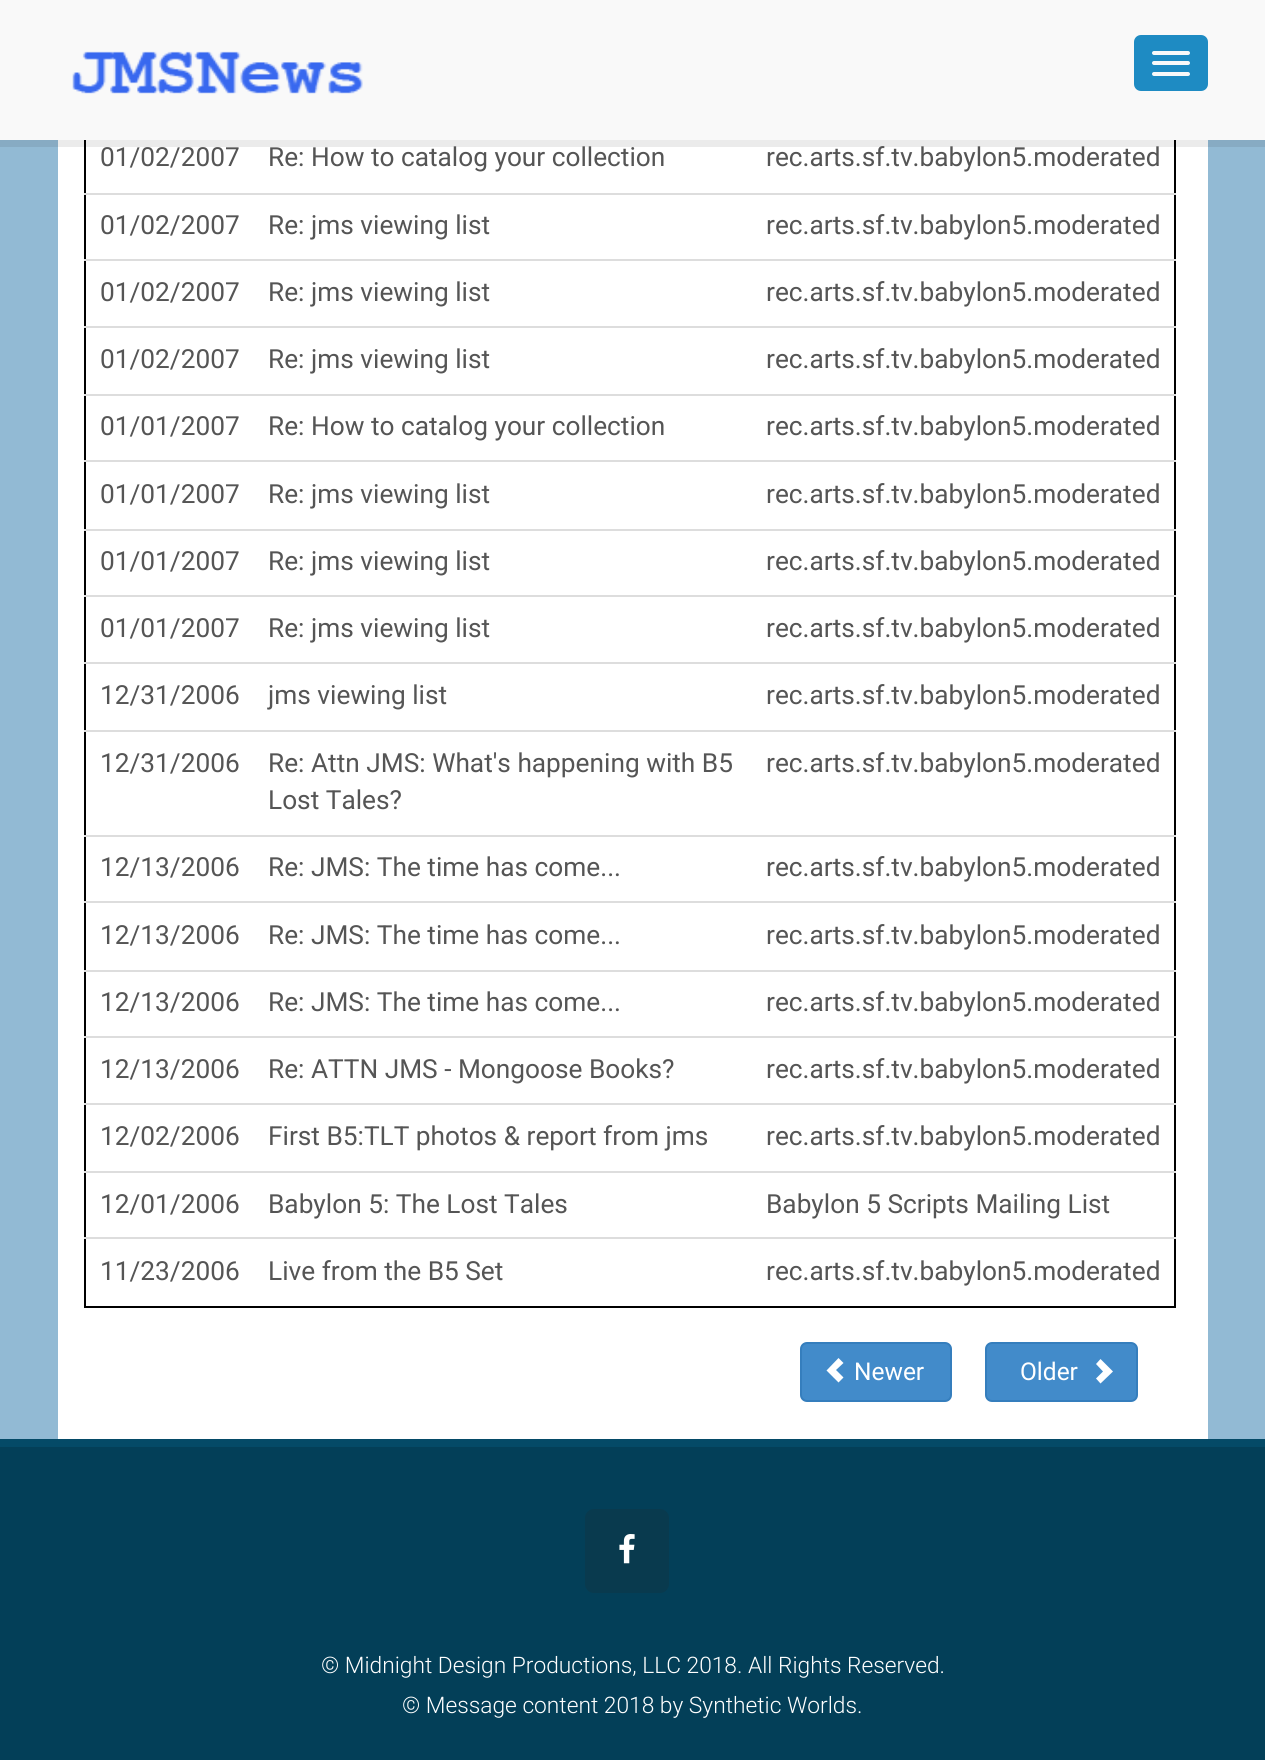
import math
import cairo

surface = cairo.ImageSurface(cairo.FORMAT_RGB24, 1265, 1760)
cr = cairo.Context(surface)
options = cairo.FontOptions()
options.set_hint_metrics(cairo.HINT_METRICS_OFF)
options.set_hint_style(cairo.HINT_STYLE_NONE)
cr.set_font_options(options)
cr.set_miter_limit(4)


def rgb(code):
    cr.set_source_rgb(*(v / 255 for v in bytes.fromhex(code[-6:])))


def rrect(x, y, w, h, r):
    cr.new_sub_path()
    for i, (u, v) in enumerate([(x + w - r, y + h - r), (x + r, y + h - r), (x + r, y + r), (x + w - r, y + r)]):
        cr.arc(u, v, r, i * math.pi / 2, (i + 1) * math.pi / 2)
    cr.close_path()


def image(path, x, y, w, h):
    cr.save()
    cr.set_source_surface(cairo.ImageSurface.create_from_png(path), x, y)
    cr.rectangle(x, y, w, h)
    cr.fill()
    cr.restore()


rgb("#033f58")
cr.paint()
rgb("#92bad4")
cr.rectangle(0, 140, 1265, 1299)
cr.fill()
rgb("#ffffff")
cr.rectangle(58, 140, 1150, 1299)
cr.fill()
rgb("#000000")
cr.rectangle(1174, 140, 2, 1167)
cr.rectangle(84, 1306, 1092, 2)
cr.rectangle(84, 140, 2, 1167)
cr.fill()
cr.set_source_rgba(0, 0, 0, 0.08)
cr.rectangle(0, 140, 1265, 7)
cr.fill()
rgb("#f9f9f9")
cr.rectangle(0, 0, 1265, 140)
cr.fill()
image("img/1.png", 72, 51, 291, 43)
rgb("#1e8bc3")
rrect(1134, 35, 74, 56, 7)
cr.fill()
rgb("#f9f9f9")
rrect(1152, 51, 38, 4, 2)
cr.fill()
rrect(1152, 61, 38, 4, 2)
cr.fill()
rrect(1152, 72, 38, 4, 2)
cr.fill()
for x, y, w, h, color in [
    (84, 193, 1092, 2, "#dddddd"),
    (84, 259, 1092, 2, "#dddddd"),
    (84, 326, 1092, 2, "#dddddd"),
    (84, 394, 1092, 2, "#dddddd"),
    (84, 460, 1092, 2, "#dddddd"),
    (84, 529, 1092, 2, "#dddddd"),
    (84, 595, 1092, 2, "#dddddd"),
    (84, 662, 1092, 2, "#dddddd"),
    (84, 730, 1092, 2, "#dddddd"),
    (84, 835, 1092, 2, "#dddddd"),
    (84, 901, 1092, 2, "#dddddd"),
    (84, 970, 1092, 2, "#dddddd"),
    (84, 1036, 1092, 2, "#dddddd"),
    (84, 1103, 1092, 2, "#dddddd"),
    (84, 1171, 1092, 2, "#dddddd"),
    (84, 1237, 1092, 2, "#dddddd"),
]:
    rgb(color)
    cr.rectangle(x, y, w, h)
    cr.fill()
rgb("#428bca")
rrect(801, 1343, 150, 58, 6)
cr.fill_preserve()
rgb("#357ebd")
cr.stroke()
rgb("#ffffff")
cr.new_path()
cr.move_to(838.5, 1382.5)
cr.line_to(843.5, 1377.5)
cr.line_to(836, 1370)
cr.line_to(843.5, 1363)
cr.line_to(838.5, 1358)
cr.line_to(826.5, 1370.5)
cr.close_path()
cr.fill()
rgb("#428bca")
rrect(986, 1343, 151, 58, 6)
cr.fill_preserve()
rgb("#357ebd")
cr.stroke()
rgb("#ffffff")
cr.new_path()
cr.move_to(1100.5, 1383.5)
cr.line_to(1096, 1378.5)
cr.line_to(1103, 1371.5)
cr.line_to(1096, 1364)
cr.line_to(1100.5, 1359)
cr.line_to(1113, 1371.5)
cr.close_path()
cr.fill()
rgb("#044a67")
cr.rectangle(0, 1439, 1265, 8)
cr.fill()
rgb("#093a4e")
rrect(585, 1509, 84, 84, 9)
cr.fill()
image("img/2.png", 619, 1534, 16, 30)
cr.select_font_face("Roboto")
cr.set_font_size(26.25)
rgb("#555555")
for x, y, s in [
    (100, 166, "01/02/2007"),
    (268, 166, "Re: How to catalog your collection"),
    (766, 166, "rec.arts.sf.tv.babylon5.moderated"),
    (100, 234, "01/02/2007"),
    (268, 234, "Re: jms viewing list"),
    (766, 234, "rec.arts.sf.tv.babylon5.moderated"),
    (100, 301, "01/02/2007"),
    (268, 301, "Re: jms viewing list"),
    (766, 301, "rec.arts.sf.tv.babylon5.moderated"),
    (100, 368, "01/02/2007"),
    (268, 368, "Re: jms viewing list"),
    (766, 368, "rec.arts.sf.tv.babylon5.moderated"),
    (100, 435, "01/01/2007"),
    (268, 435, "Re: How to catalog your collection"),
    (766, 435, "rec.arts.sf.tv.babylon5.moderated"),
    (100, 503, "01/01/2007"),
    (268, 503, "Re: jms viewing list"),
    (766, 503, "rec.arts.sf.tv.babylon5.moderated"),
    (100, 570, "01/01/2007"),
    (268, 570, "Re: jms viewing list"),
    (766, 570, "rec.arts.sf.tv.babylon5.moderated"),
    (100, 637, "01/01/2007"),
    (268, 637, "Re: jms viewing list"),
    (766, 637, "rec.arts.sf.tv.babylon5.moderated"),
    (100, 704, "12/31/2006"),
    (268, 704, "jms viewing list"),
    (766, 704, "rec.arts.sf.tv.babylon5.moderated"),
    (100, 772, "12/31/2006"),
    (268, 772, "Re: Attn JMS: What's happening with B5"),
    (268, 809, "Lost Tales?"),
    (766, 772, "rec.arts.sf.tv.babylon5.moderated"),
    (100, 876, "12/13/2006"),
    (268, 876, "Re: JMS: The time has come..."),
    (766, 876, "rec.arts.sf.tv.babylon5.moderated"),
    (100, 944, "12/13/2006"),
    (268, 944, "Re: JMS: The time has come..."),
    (766, 944, "rec.arts.sf.tv.babylon5.moderated"),
    (100, 1011, "12/13/2006"),
    (268, 1011, "Re: JMS: The time has come..."),
    (766, 1011, "rec.arts.sf.tv.babylon5.moderated"),
    (100, 1078, "12/13/2006"),
    (268, 1078, "Re: ATTN JMS - Mongoose Books?"),
    (766, 1078, "rec.arts.sf.tv.babylon5.moderated"),
    (100, 1145, "12/02/2006"),
    (268, 1145, "First B5:TLT photos & report from jms"),
    (766, 1145, "rec.arts.sf.tv.babylon5.moderated"),
    (100, 1213, "12/01/2006"),
    (268, 1213, "Babylon 5: The Lost Tales"),
    (766, 1213, "Babylon 5 Scripts Mailing List"),
    (100, 1280, "11/23/2006"),
    (268, 1280, "Live from the B5 Set"),
    (766, 1280, "rec.arts.sf.tv.babylon5.moderated"),
]:
    cr.move_to(x, y)
    cr.show_text(s)
cr.set_font_size(24.5)
rgb("#ffffff")
cr.move_to(854, 1380)
cr.show_text("Newer")
cr.move_to(1020, 1380)
cr.show_text("Older")
cr.select_font_face("Roboto Light")
cr.set_font_size(22.75)
cr.move_to(321, 1673)
cr.show_text("© Midnight Design Productions, LLC 2018. All Rights Reserved.")
cr.move_to(402, 1713)
cr.show_text("© Message content 2018 by Synthetic Worlds.")
surface.write_to_png("page.png")
